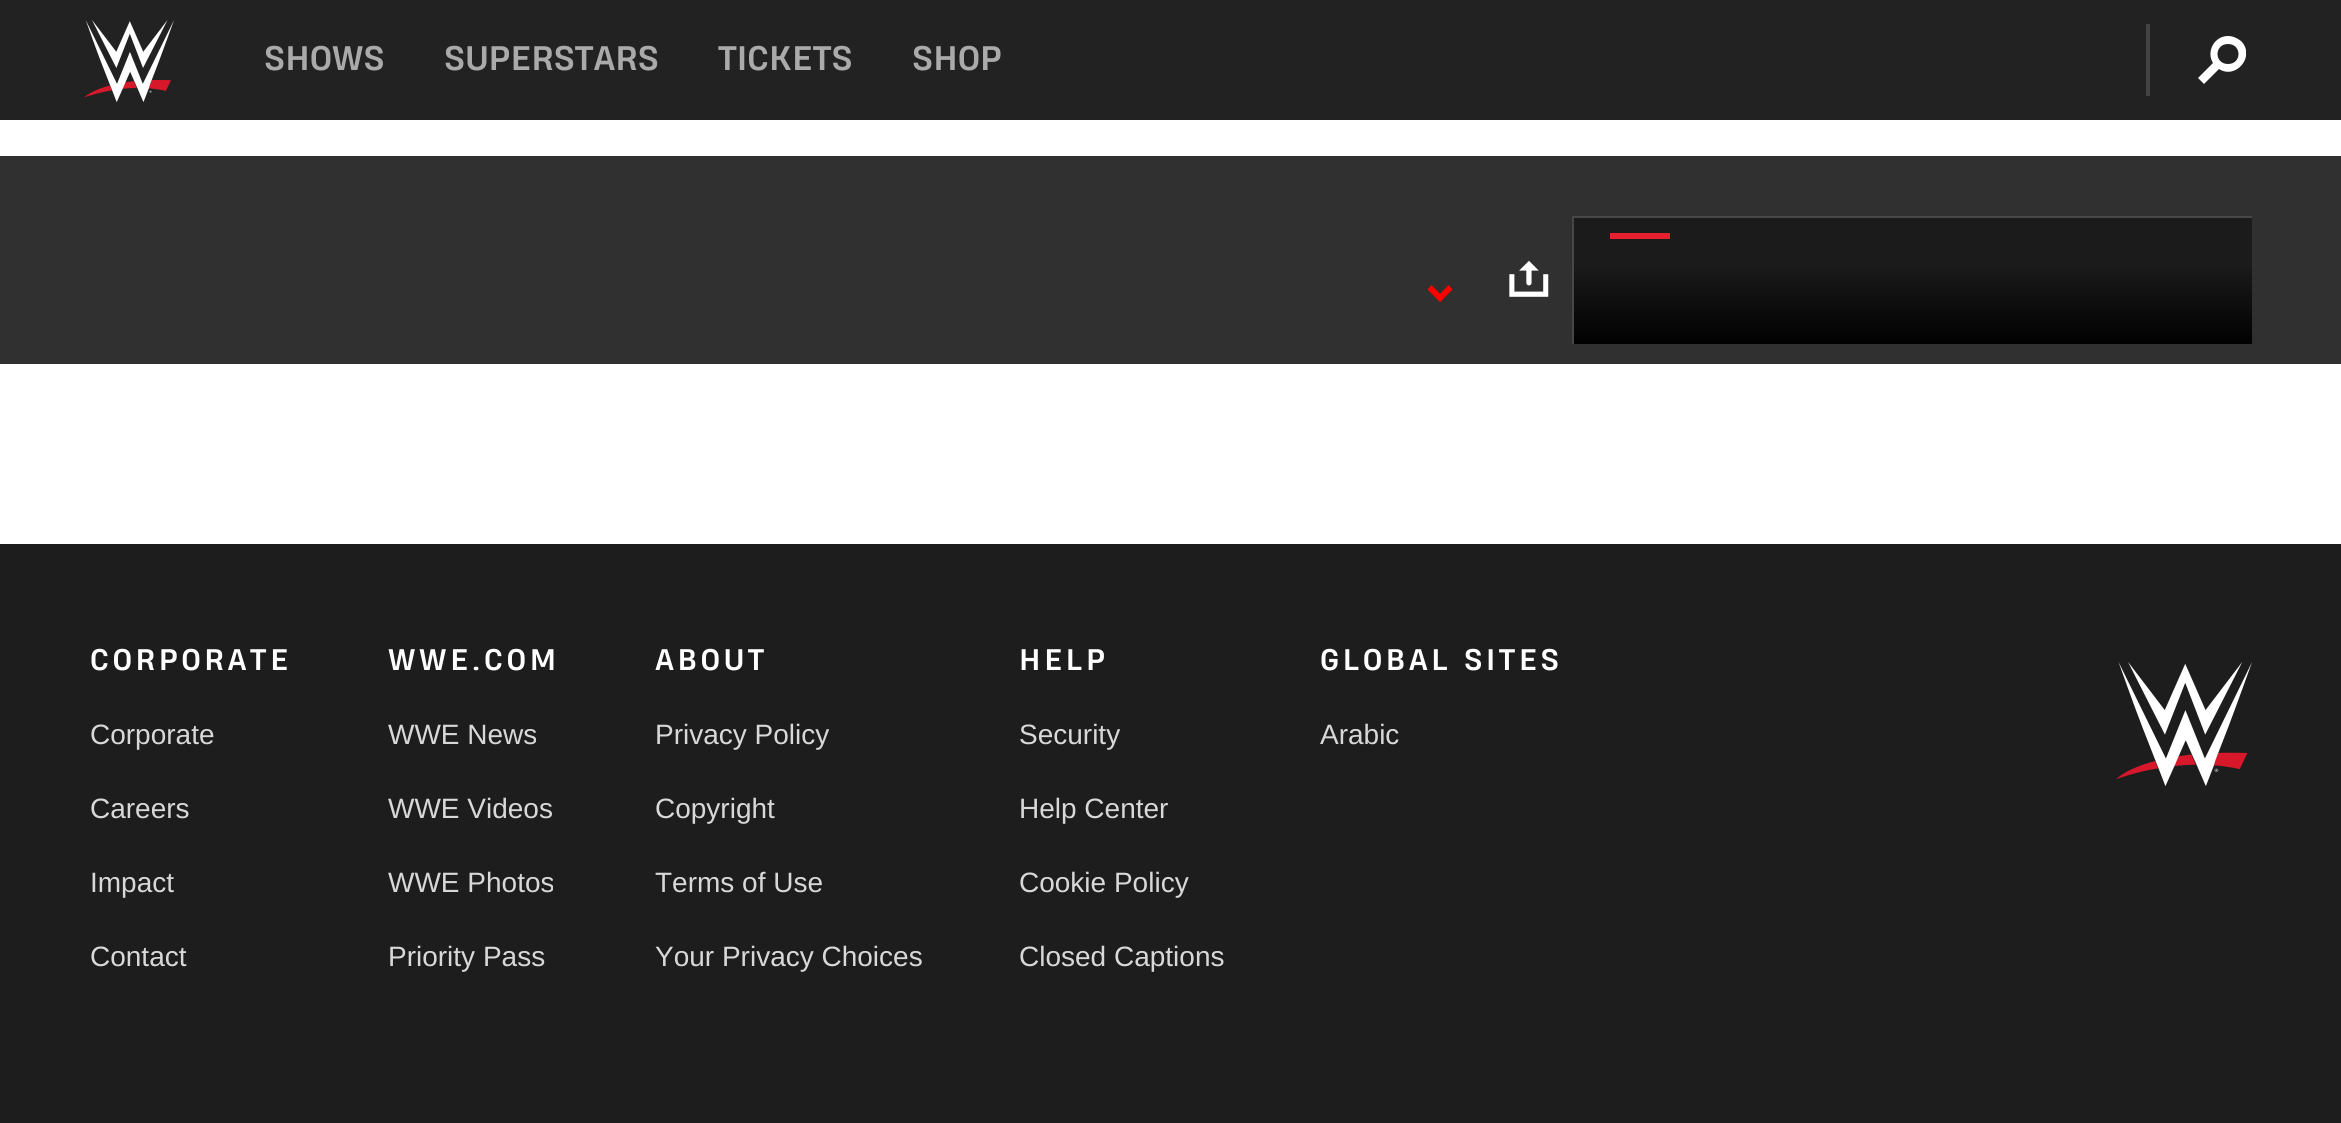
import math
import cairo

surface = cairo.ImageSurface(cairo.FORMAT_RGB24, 2341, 1123)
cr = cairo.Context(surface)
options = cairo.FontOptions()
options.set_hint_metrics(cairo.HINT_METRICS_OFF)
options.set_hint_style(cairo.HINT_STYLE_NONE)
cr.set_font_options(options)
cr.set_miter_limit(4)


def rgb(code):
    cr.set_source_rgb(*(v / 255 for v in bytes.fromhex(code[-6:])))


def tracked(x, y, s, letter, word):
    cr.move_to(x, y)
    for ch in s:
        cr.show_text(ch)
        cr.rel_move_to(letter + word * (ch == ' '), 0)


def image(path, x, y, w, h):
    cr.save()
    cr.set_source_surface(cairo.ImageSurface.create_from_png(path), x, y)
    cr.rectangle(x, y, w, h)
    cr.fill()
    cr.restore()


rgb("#ffffff")
cr.paint()
rgb("#222222")
cr.rectangle(0, 0, 2341, 120)
cr.fill()
image("img/1.png", 84, 20, 90, 82)
rgb("#444444")
cr.rectangle(2146, 24, 4, 72)
cr.fill()
cr.save()
cr.rectangle(2198, 36, 48, 48)
cr.clip()
rgb("#ffffff")
cr.set_fill_rule(cairo.FILL_RULE_EVEN_ODD)
cr.new_path()
cr.move_to(2228, 36)
cr.curve_to(2233, 36, 2237, 38, 2241, 41)
cr.curve_to(2256, 56, 2236, 80, 2219, 69)
cr.line_to(2204, 84)
cr.line_to(2198, 78)
cr.line_to(2213, 63)
cr.curve_to(2206, 52, 2214, 36, 2228, 36)
cr.close_path()
cr.move_to(2228, 44)
cr.curve_to(2214, 44, 2214, 64, 2228, 64)
cr.curve_to(2242, 64, 2242, 44, 2228, 44)
cr.close_path()
cr.fill()
cr.restore()
rgb("#303030")
cr.rectangle(0, 156, 2341, 208)
cr.fill()
rgb("#ff0000")
cr.new_path()
cr.move_to(1448.5, 285)
cr.line_to(1452.5, 289.5)
cr.line_to(1440, 302)
cr.line_to(1436, 298)
cr.close_path()
cr.fill()
cr.new_path()
cr.move_to(1431.5, 285)
cr.line_to(1444, 298)
cr.line_to(1440, 302)
cr.line_to(1427.5, 289.5)
cr.close_path()
cr.fill()
image("img/2.png", 1509, 260, 40, 37)
for x, y, w, h, color in [
    (1574, 218, 678, 46, "#1b1b1b"),
    (1572, 216, 2, 128, "#474747"),
    (1574, 216, 678, 2, "#474747"),
    (1610, 233, 60, 6, "#e7202f"),
]:
    rgb(color)
    cr.rectangle(x, y, w, h)
    cr.fill()
gradient = cairo.LinearGradient(1913, 264, 1913, 344)
gradient.add_color_stop_rgba(0, 0.106, 0.106, 0.106, 1)
gradient.add_color_stop_rgba(1, 0.004, 0.004, 0.004, 1)
cr.set_source(gradient)
cr.rectangle(1574, 264, 678, 80)
cr.fill()
rgb("#1d1d1d")
cr.rectangle(0, 544, 2341, 579)
cr.fill()
image("img/3.png", 2116, 662, 136, 124)
cr.select_font_face("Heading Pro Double", cairo.FONT_SLANT_NORMAL, cairo.FONT_WEIGHT_BOLD)
cr.set_font_size(32)
rgb("#aaaaaa")
for x, y, s in [
    (264, 70, "SHOWS"),
    (444, 70, "SUPERSTARS"),
    (718, 70, "TICKETS"),
    (912, 70, "SHOP"),
]:
    cr.move_to(x, y)
    cr.show_text(s)
cr.set_font_size(28)
rgb("#ffffff")
tracked(90, 670, "CORPORATE", 3.5, 0)
cr.select_font_face("Liberation Sans")
rgb("#d8d8d8")
for x, y, s in [
    (90, 744, "Corporate"),
    (90, 818, "Careers"),
    (90, 892, "Impact"),
    (90, 966, "Contact"),
]:
    cr.move_to(x, y)
    cr.show_text(s)
cr.select_font_face("Heading Pro Double", cairo.FONT_SLANT_NORMAL, cairo.FONT_WEIGHT_BOLD)
rgb("#ffffff")
tracked(388, 670, "WWE.COM", 3.5, 0)
cr.select_font_face("Liberation Sans")
rgb("#d8d8d8")
for x, y, s in [
    (388, 744, "WWE News"),
    (388, 818, "WWE Videos"),
    (388, 892, "WWE Photos"),
    (388, 966, "Priority Pass"),
]:
    cr.move_to(x, y)
    cr.show_text(s)
cr.select_font_face("Heading Pro Double", cairo.FONT_SLANT_NORMAL, cairo.FONT_WEIGHT_BOLD)
rgb("#ffffff")
tracked(655, 670, "ABOUT", 3.5, 0)
cr.select_font_face("Liberation Sans")
rgb("#d8d8d8")
for x, y, s in [
    (655, 744, "Privacy Policy"),
    (655, 818, "Copyright"),
    (655, 892, "Terms of Use"),
    (655, 966, "Your Privacy Choices"),
]:
    cr.move_to(x, y)
    cr.show_text(s)
cr.select_font_face("Heading Pro Double", cairo.FONT_SLANT_NORMAL, cairo.FONT_WEIGHT_BOLD)
rgb("#ffffff")
tracked(1019, 670, "HELP", 3.5, 0)
cr.select_font_face("Liberation Sans")
rgb("#d8d8d8")
for x, y, s in [
    (1019, 744, "Security"),
    (1019, 818, "Help Center"),
    (1019, 892, "Cookie Policy"),
    (1019, 966, "Closed Captions"),
]:
    cr.move_to(x, y)
    cr.show_text(s)
cr.select_font_face("Heading Pro Double", cairo.FONT_SLANT_NORMAL, cairo.FONT_WEIGHT_BOLD)
rgb("#ffffff")
tracked(1320, 670, "GLOBAL SITES", 3.5, 0)
cr.select_font_face("Liberation Sans")
rgb("#d8d8d8")
cr.move_to(1320, 744)
cr.show_text("Arabic")
surface.write_to_png("page.png")
